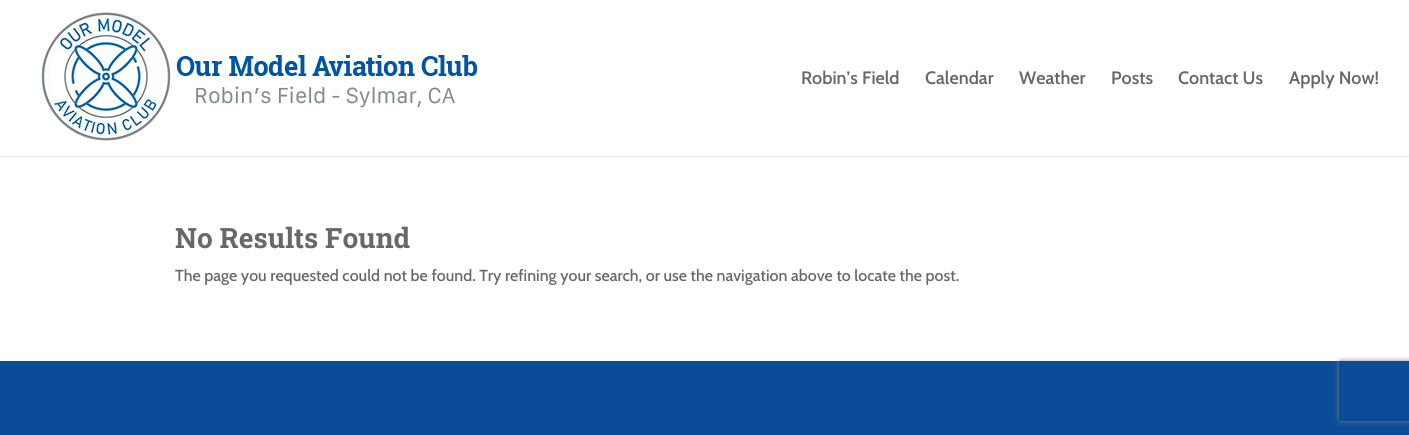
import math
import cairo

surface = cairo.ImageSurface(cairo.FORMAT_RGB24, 1409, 435)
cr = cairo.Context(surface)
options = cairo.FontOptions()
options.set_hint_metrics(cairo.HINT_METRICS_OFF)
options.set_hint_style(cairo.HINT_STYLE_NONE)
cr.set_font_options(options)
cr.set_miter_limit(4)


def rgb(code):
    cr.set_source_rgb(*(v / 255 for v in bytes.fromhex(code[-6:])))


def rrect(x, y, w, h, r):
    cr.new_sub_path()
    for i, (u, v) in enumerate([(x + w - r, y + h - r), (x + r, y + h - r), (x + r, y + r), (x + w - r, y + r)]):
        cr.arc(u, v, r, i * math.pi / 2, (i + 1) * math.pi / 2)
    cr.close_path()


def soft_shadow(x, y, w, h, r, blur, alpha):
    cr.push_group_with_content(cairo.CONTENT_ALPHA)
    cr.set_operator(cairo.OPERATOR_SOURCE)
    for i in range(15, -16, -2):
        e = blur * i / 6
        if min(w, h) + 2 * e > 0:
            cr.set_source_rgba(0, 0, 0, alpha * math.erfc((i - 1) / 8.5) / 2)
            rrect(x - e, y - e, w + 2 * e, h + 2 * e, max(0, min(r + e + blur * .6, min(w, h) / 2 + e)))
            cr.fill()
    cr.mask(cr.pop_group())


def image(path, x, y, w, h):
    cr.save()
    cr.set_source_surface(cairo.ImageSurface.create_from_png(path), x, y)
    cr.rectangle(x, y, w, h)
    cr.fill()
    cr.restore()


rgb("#ffffff")
cr.paint()
rgb("#e6e6e6")
cr.rectangle(0, 156, 1409, 1)
cr.fill()
image("img/1.png", 41, 12, 437, 129)
rgb("#0b4c99")
cr.rectangle(0, 361, 1409, 74)
cr.fill()
cr.save()
cr.set_fill_rule(cairo.FILL_RULE_EVEN_ODD)
cr.new_path()
cr.move_to(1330, 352)
cr.line_to(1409, 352)
cr.line_to(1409, 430)
cr.line_to(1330, 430)
cr.close_path()
cr.move_to(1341, 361)
cr.line_to(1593, 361)
cr.curve_to(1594, 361, 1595, 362, 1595, 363)
cr.line_to(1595, 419)
cr.curve_to(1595, 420, 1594, 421, 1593, 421)
cr.line_to(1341, 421)
cr.curve_to(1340, 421, 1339, 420, 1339, 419)
cr.line_to(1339, 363)
cr.curve_to(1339, 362, 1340, 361, 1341, 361)
cr.close_path()
cr.clip()
rgb("#808080")
soft_shadow(1339, 361, 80, 60, 2, 2.5, 1)
cr.restore()
cr.select_font_face("Cabin SemiBold")
cr.set_font_size(18)
rgb("#686868")
for x, y, s in [
    (801, 84, "Robin’s Field"),
    (925, 84, "Calendar"),
    (1019, 84, "Weather"),
    (1111, 84, "Posts"),
    (1178, 84, "Contact Us"),
    (1289, 84, "Apply Now!"),
]:
    cr.move_to(x, y)
    cr.show_text(s)
cr.select_font_face("Roboto Slab", cairo.FONT_SLANT_NORMAL, cairo.FONT_WEIGHT_BOLD)
cr.set_font_size(28)
cr.move_to(175, 248)
cr.show_text("No Results Found")
cr.select_font_face("Cabin Medium")
cr.set_font_size(16)
cr.move_to(175, 281)
cr.show_text("The page you requested could not be found. Try refining your search, or use the navigation above to locate the post.")
surface.write_to_png("page.png")
